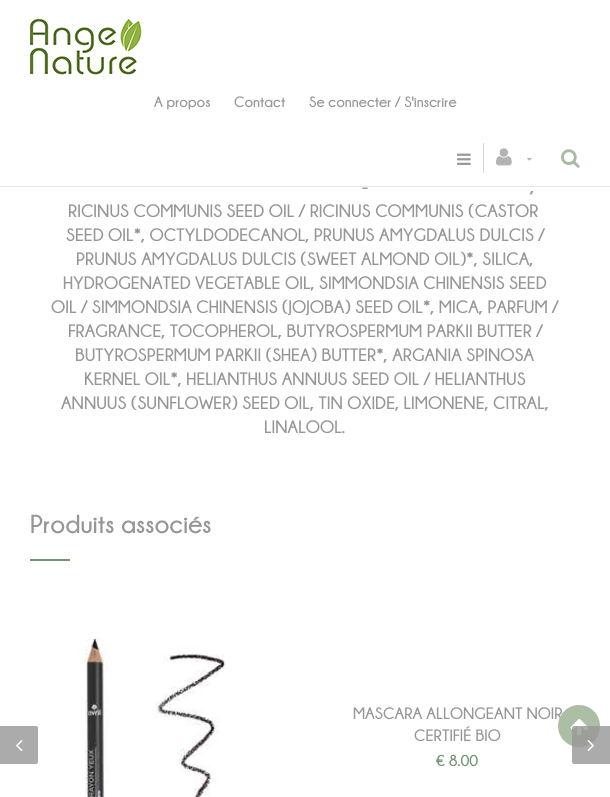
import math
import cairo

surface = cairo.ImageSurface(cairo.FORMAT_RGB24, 610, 797)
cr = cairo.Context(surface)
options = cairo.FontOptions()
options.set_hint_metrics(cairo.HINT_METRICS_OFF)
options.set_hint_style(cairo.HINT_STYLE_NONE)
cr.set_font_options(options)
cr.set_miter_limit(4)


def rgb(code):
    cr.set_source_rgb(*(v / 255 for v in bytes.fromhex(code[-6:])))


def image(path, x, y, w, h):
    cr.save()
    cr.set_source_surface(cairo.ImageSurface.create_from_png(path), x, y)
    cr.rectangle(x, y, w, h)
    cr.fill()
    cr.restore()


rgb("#ffffff")
cr.paint()
rgb("#e6e6e6")
cr.rectangle(0, 186, 610, 1)
cr.fill()
image("img/1.png", 30, 19, 112, 56)
image("img/2.png", 457, 153, 14, 12)
rgb("#d6d6d6")
cr.rectangle(483, 143, 1, 30)
cr.fill()
image("img/3.png", 496, 148, 16, 18)
image("img/4.png", 527, 158, 5, 3)
image("img/5.png", 561, 149, 19, 19)
rgb("#739576")
cr.rectangle(30, 559, 40, 2)
cr.fill()
rgb("#acabab")
cr.new_path()
cr.move_to(0, 726)
cr.line_to(36, 726)
cr.curve_to(37, 726, 38, 727, 38, 728)
cr.line_to(38, 762)
cr.curve_to(38, 763, 37, 764, 36, 764)
cr.line_to(0, 764)
cr.close_path()
cr.fill()
image("img/6.png", 16, 740, 7, 11)
image("img/7.png", 77, 638, 149, 159)
cr.select_font_face("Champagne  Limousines", cairo.FONT_SLANT_NORMAL, cairo.FONT_WEIGHT_BOLD)
cr.set_font_size(15)
rgb("#979696")
for x, y, s in [
    (154, 107, "A propos"),
    (234, 107, "Contact"),
    (309, 107, "Se connecter / S'inscrire"),
]:
    cr.move_to(x, y)
    cr.show_text(s)
cr.set_font_size(18)
for x, y, s in [
    (362, 193, "-"),
    (530, 193, ","),
    (68, 217, "RICINUS COMMUNIS SEED OIL / RICINUS COMMUNIS (CASTOR"),
    (66, 241, "SEED OIL*, OCTYLDODECANOL, PRUNUS AMYGDALUS DULCIS /"),
    (76, 265, "PRUNUS AMYGDALUS DULCIS (SWEET ALMOND OIL)*, SILICA,"),
    (63, 289, "HYDROGENATED VEGETABLE OIL, SIMMONDSIA CHINENSIS SEED"),
    (51, 313, "OIL / SIMMONDSIA CHINENSIS (JOJOBA) SEED OIL*, MICA, PARFUM /"),
    (68, 337, "FRAGRANCE, TOCOPHEROL, BUTYROSPERMUM PARKII BUTTER /"),
    (75, 361, "BUTYROSPERMUM PARKII (SHEA) BUTTER*, ARGANIA SPINOSA"),
    (84, 385, "KERNEL OIL*, HELIANTHUS ANNUUS SEED OIL / HELIANTHUS"),
    (61, 409, "ANNUUS (SUNFLOWER) SEED OIL, TIN OXIDE, LIMONENE, CITRAL,"),
    (264, 433, "LINALOOL."),
]:
    cr.move_to(x, y)
    cr.show_text(s)
cr.set_font_size(26)
cr.move_to(30, 533)
cr.show_text("Produits associés")
cr.set_font_size(16.5)
cr.move_to(353, 719)
cr.show_text("MASCARA ALLONGEANT NOIR")
cr.move_to(414, 741)
cr.show_text("CERTIFIÉ BIO")
cr.set_font_size(16)
rgb("#739576")
cr.move_to(436, 766)
cr.show_text("€ 8.00")
rgb("#acbea4")
cr.new_path()
cr.arc(579, 726, 21, 0, 2 * math.pi)
cr.fill()
image("img/9.png", 570, 719, 18, 17)
cr.set_source_rgba(0.592, 0.588, 0.588, 0.8)
cr.new_path()
cr.move_to(574, 726)
cr.line_to(610, 726)
cr.line_to(610, 764)
cr.line_to(574, 764)
cr.curve_to(573, 764, 572, 763, 572, 762)
cr.line_to(572, 728)
cr.curve_to(572, 727, 573, 726, 574, 726)
cr.close_path()
cr.fill()
image("img/8.png", 587, 740, 7, 11)
surface.write_to_png("page.png")
